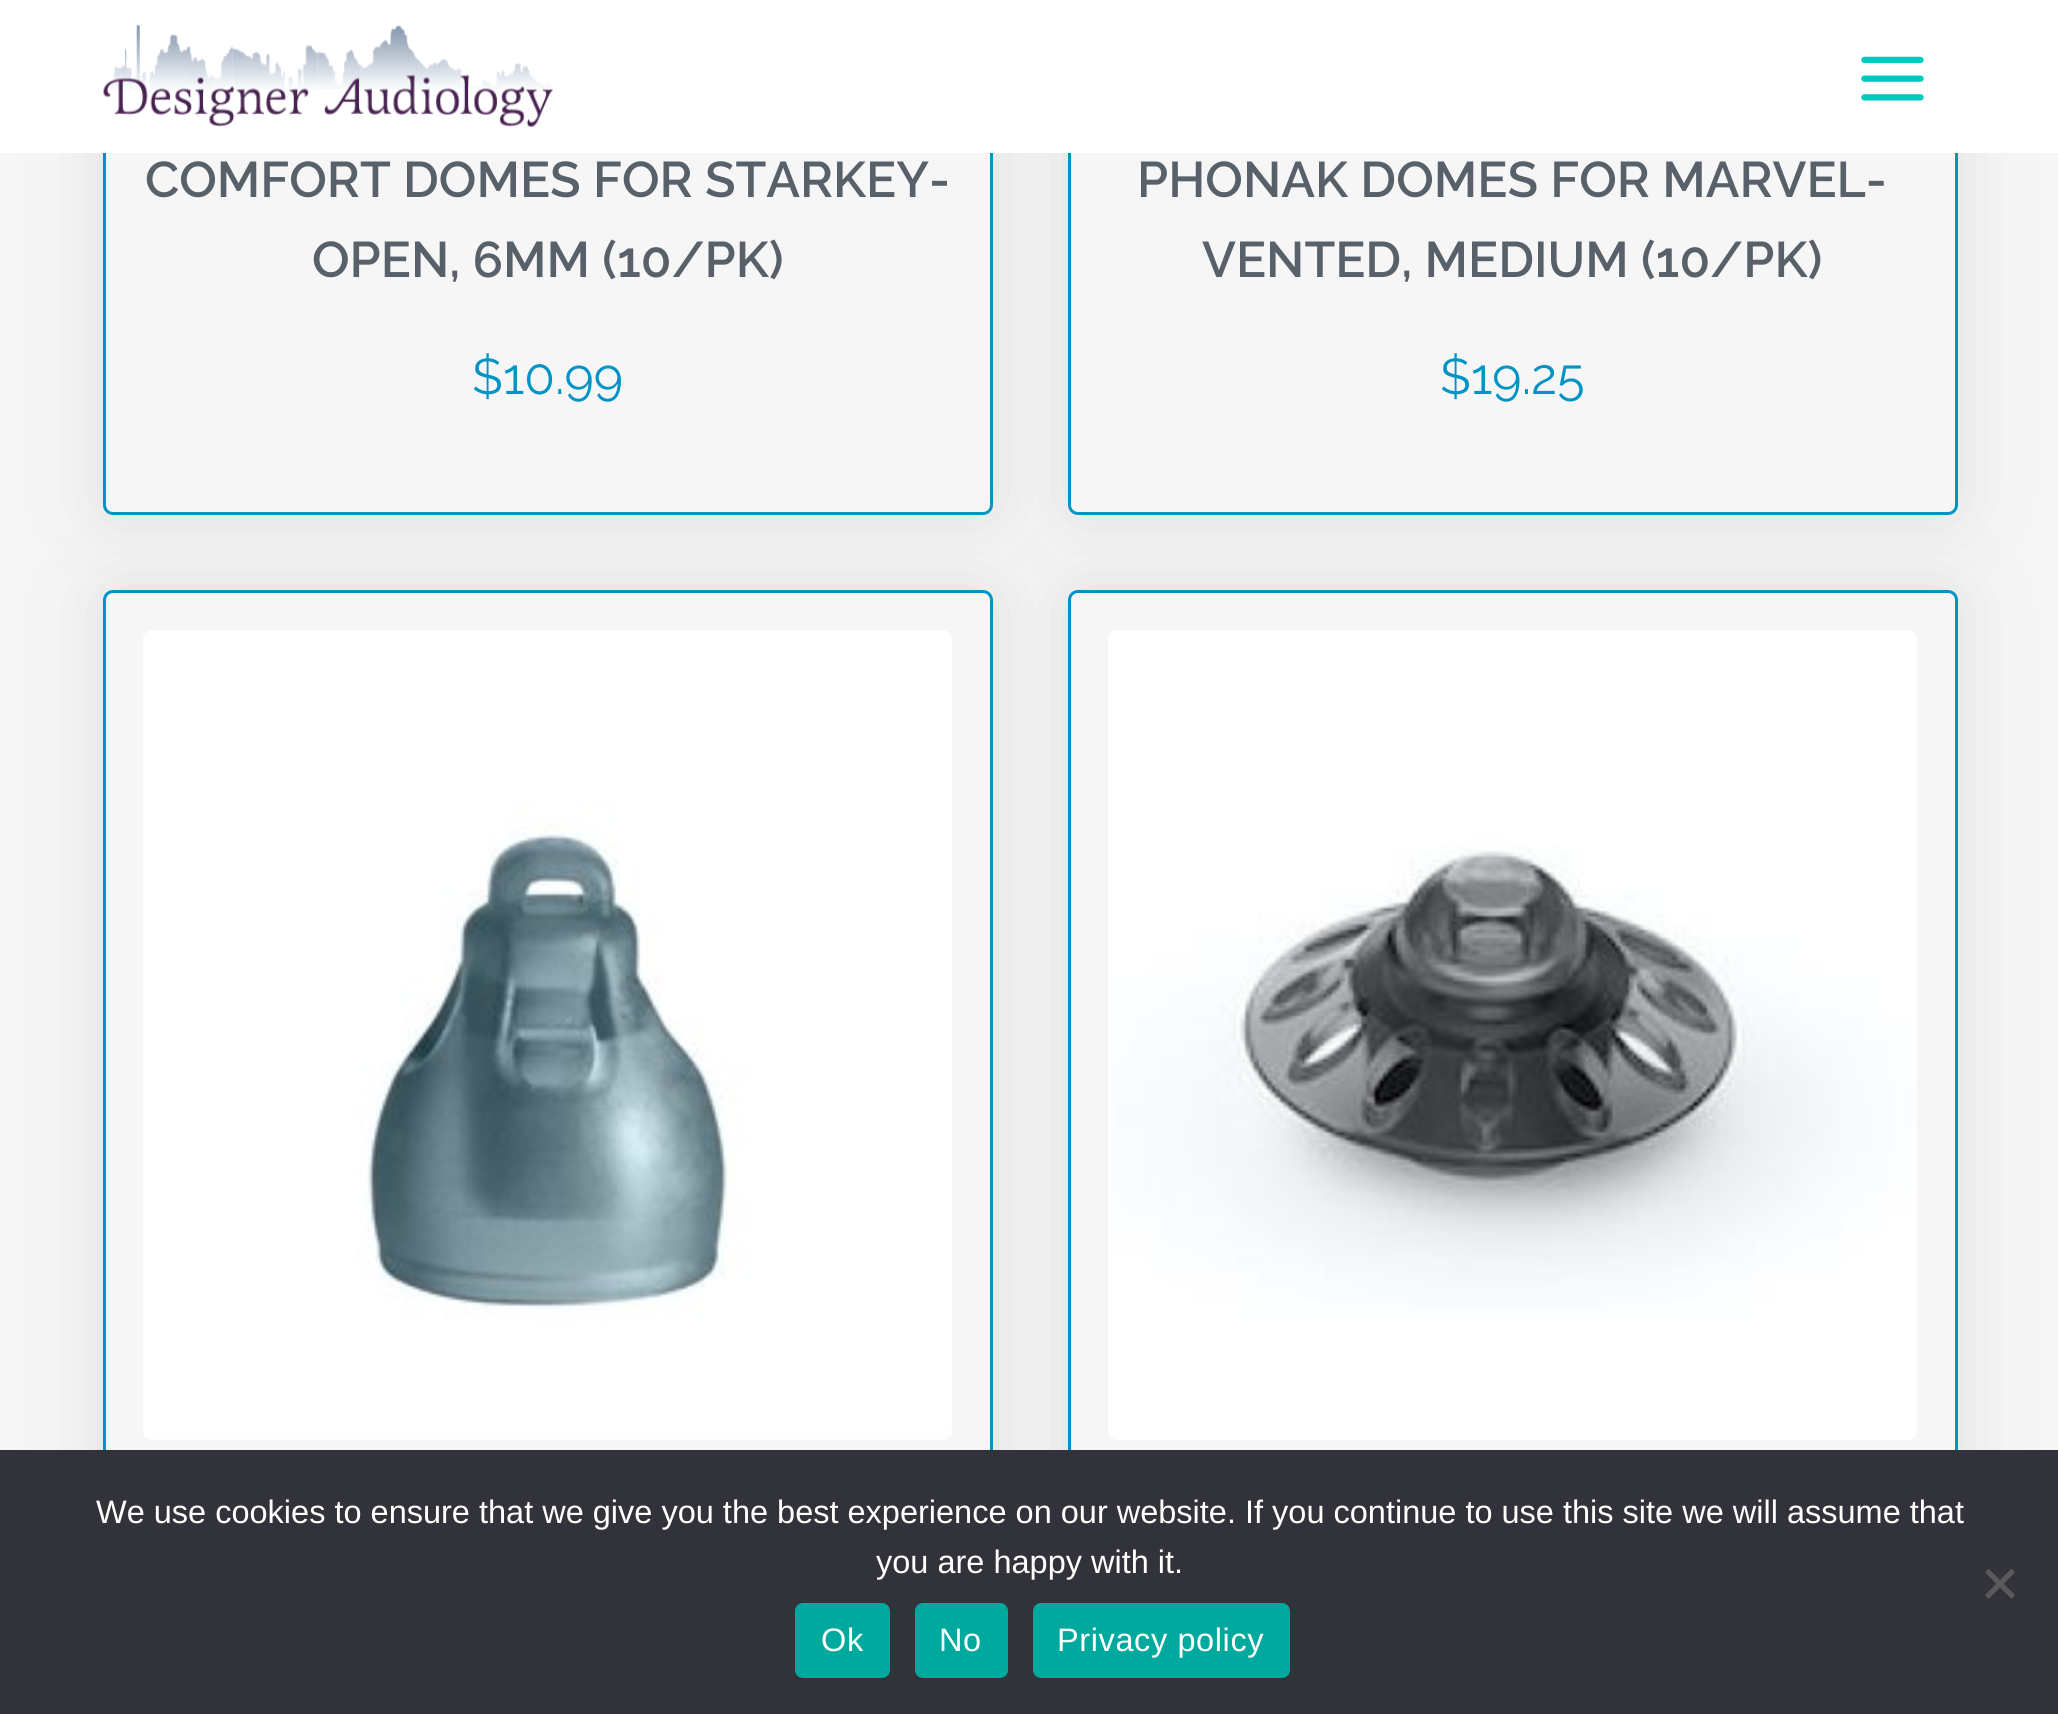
import math
import cairo

surface = cairo.ImageSurface(cairo.FORMAT_RGB24, 2058, 1714)
cr = cairo.Context(surface)
options = cairo.FontOptions()
options.set_hint_metrics(cairo.HINT_METRICS_OFF)
options.set_hint_style(cairo.HINT_STYLE_NONE)
cr.set_font_options(options)
cr.set_miter_limit(4)


def rgb(code):
    cr.set_source_rgb(*(v / 255 for v in bytes.fromhex(code[-6:])))


def tracked(x, y, s, letter, word):
    cr.move_to(x, y)
    for ch in s:
        cr.show_text(ch)
        cr.rel_move_to(letter + word * (ch == ' '), 0)


def rrect(x, y, w, h, r):
    cr.new_sub_path()
    for i, (u, v) in enumerate([(x + w - r, y + h - r), (x + r, y + h - r), (x + r, y + r), (x + w - r, y + r)]):
        cr.arc(u, v, r, i * math.pi / 2, (i + 1) * math.pi / 2)
    cr.close_path()


def soft_shadow(x, y, w, h, r, blur, alpha):
    cr.push_group_with_content(cairo.CONTENT_ALPHA)
    cr.set_operator(cairo.OPERATOR_SOURCE)
    for i in range(15, -16, -2):
        e = blur * i / 6
        if min(w, h) + 2 * e > 0:
            cr.set_source_rgba(0, 0, 0, alpha * math.erfc((i - 1) / 8.5) / 2)
            rrect(x - e, y - e, w + 2 * e, h + 2 * e, max(0, min(r + e + blur * .6, min(w, h) / 2 + e)))
            cr.fill()
    cr.mask(cr.pop_group())


def image(path, x, y, w, h):
    cr.save()
    cr.set_source_surface(cairo.ImageSurface.create_from_png(path), x, y)
    cr.rectangle(x, y, w, h)
    cr.fill()
    cr.restore()


rgb("#f6f6f7")
cr.paint()
cr.save()
cr.set_fill_rule(cairo.FILL_RULE_EVEN_ODD)
cr.new_path()
cr.move_to(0, 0)
cr.line_to(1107, 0)
cr.line_to(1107, 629)
cr.line_to(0, 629)
cr.close_path()
cr.move_to(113, -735)
cr.line_to(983, -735)
cr.curve_to(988.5, -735, 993, -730.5, 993, -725)
cr.line_to(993, 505)
cr.curve_to(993, 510.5, 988.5, 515, 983, 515)
cr.line_to(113, 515)
cr.curve_to(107.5, 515, 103, 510.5, 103, 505)
cr.line_to(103, -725)
cr.curve_to(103, -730.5, 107.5, -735, 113, -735)
cr.close_path()
cr.clip()
rgb("#dedede")
soft_shadow(103, -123, 890, 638, 10, 37.5, 1)
cr.restore()
rrect(104.5, -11.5, 887, 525, 8.5)
rgb("#0093c6")
cr.set_line_width(3)
cr.stroke()
cr.save()
cr.set_fill_rule(cairo.FILL_RULE_EVEN_ODD)
cr.new_path()
cr.move_to(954, 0)
cr.line_to(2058, 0)
cr.line_to(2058, 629)
cr.line_to(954, 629)
cr.close_path()
cr.move_to(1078, -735)
cr.line_to(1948, -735)
cr.curve_to(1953.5, -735, 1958, -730.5, 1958, -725)
cr.line_to(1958, 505)
cr.curve_to(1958, 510.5, 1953.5, 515, 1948, 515)
cr.line_to(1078, 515)
cr.curve_to(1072.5, 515, 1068, 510.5, 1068, 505)
cr.line_to(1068, -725)
cr.curve_to(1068, -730.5, 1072.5, -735, 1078, -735)
cr.close_path()
cr.clip()
rgb("#dedede")
soft_shadow(1068, -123, 890, 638, 10, 37.5, 1)
cr.restore()
rrect(1069.5, -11.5, 887, 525, 8.5)
cr.stroke()
rgb("#ffffff")
cr.rectangle(0, 0, 2058, 153)
cr.fill()
image("img/1.png", 103, 25, 450, 102)
image("img/2.png", 1861, 56, 63, 45)
cr.save()
cr.set_fill_rule(cairo.FILL_RULE_EVEN_ODD)
cr.new_path()
cr.move_to(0, 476)
cr.line_to(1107, 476)
cr.line_to(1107, 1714)
cr.line_to(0, 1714)
cr.close_path()
cr.move_to(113, 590)
cr.line_to(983, 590)
cr.curve_to(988.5, 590, 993, 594.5, 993, 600)
cr.line_to(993, 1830)
cr.curve_to(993, 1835.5, 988.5, 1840, 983, 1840)
cr.line_to(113, 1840)
cr.curve_to(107.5, 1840, 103, 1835.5, 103, 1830)
cr.line_to(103, 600)
cr.curve_to(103, 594.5, 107.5, 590, 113, 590)
cr.close_path()
cr.clip()
rgb("#dedede")
soft_shadow(103, 590, 890, 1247, 10, 37.5, 1)
cr.restore()
rrect(104.5, 591.5, 887, 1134, 8.5)
rgb("#0093c6")
cr.stroke()
image("img/3.png", 143, 630, 809, 810)
cr.save()
cr.set_fill_rule(cairo.FILL_RULE_EVEN_ODD)
cr.new_path()
cr.move_to(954, 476)
cr.line_to(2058, 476)
cr.line_to(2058, 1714)
cr.line_to(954, 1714)
cr.close_path()
cr.move_to(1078, 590)
cr.line_to(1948, 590)
cr.curve_to(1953.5, 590, 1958, 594.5, 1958, 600)
cr.line_to(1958, 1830)
cr.curve_to(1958, 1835.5, 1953.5, 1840, 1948, 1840)
cr.line_to(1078, 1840)
cr.curve_to(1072.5, 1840, 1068, 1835.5, 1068, 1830)
cr.line_to(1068, 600)
cr.curve_to(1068, 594.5, 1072.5, 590, 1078, 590)
cr.close_path()
cr.clip()
rgb("#dedede")
soft_shadow(1068, 590, 890, 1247, 10, 37.5, 1)
cr.restore()
rrect(1069.5, 591.5, 887, 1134, 8.5)
cr.stroke()
image("img/4.png", 1108, 630, 809, 810)
rgb("#32323a")
cr.rectangle(0, 1450, 2058, 264)
cr.fill()
rgb("#59595d")
cr.new_path()
cr.move_to(2011.5, 1568.5)
cr.line_to(2015, 1572.5)
cr.line_to(1988.5, 1599)
cr.line_to(1985, 1595)
cr.close_path()
cr.fill()
cr.new_path()
cr.move_to(1985, 1572.5)
cr.line_to(1988.5, 1568.5)
cr.line_to(2015, 1595)
cr.line_to(2011.5, 1599)
cr.close_path()
cr.fill()
rgb("#00a99d")
rrect(795, 1603, 95, 75, 8)
cr.fill()
rrect(915, 1603, 93, 75, 8)
cr.fill()
rrect(1033, 1603, 257, 75, 8)
cr.fill()
cr.select_font_face("Raleway SemiBold")
cr.set_font_size(50)
rgb("#586169")
cr.move_to(145, 197)
cr.show_text("COMFORT DOMES FOR STARKEY-")
cr.move_to(312, 277)
cr.show_text("OPEN, 6MM (10/PK)")
cr.select_font_face("Raleway")
rgb("#0093c6")
cr.move_to(472, 394)
cr.show_text("$10.99")
cr.select_font_face("Raleway SemiBold")
rgb("#586169")
cr.move_to(1137, 197)
cr.show_text("PHONAK DOMES FOR MARVEL-")
cr.move_to(1202, 277)
cr.show_text("VENTED, MEDIUM (10/PK)")
cr.select_font_face("Raleway")
rgb("#0093c6")
cr.move_to(1440, 394)
cr.show_text("$19.25")
cr.select_font_face("Liberation Sans")
cr.set_font_size(32.5)
rgb("#ffffff")
cr.move_to(96, 1523)
cr.show_text("We use cookies to ensure that we give you the best experience on our website. If you continue to use this site we will assume that")
cr.move_to(876, 1573)
cr.show_text("you are happy with it.")
for x, y, s in [
    (821, 1651, "Ok"),
    (939, 1651, "No"),
    (1057, 1651, "Privacy policy"),
]:
    tracked(x, y, s, 0.6, 0)
surface.write_to_png("page.png")
